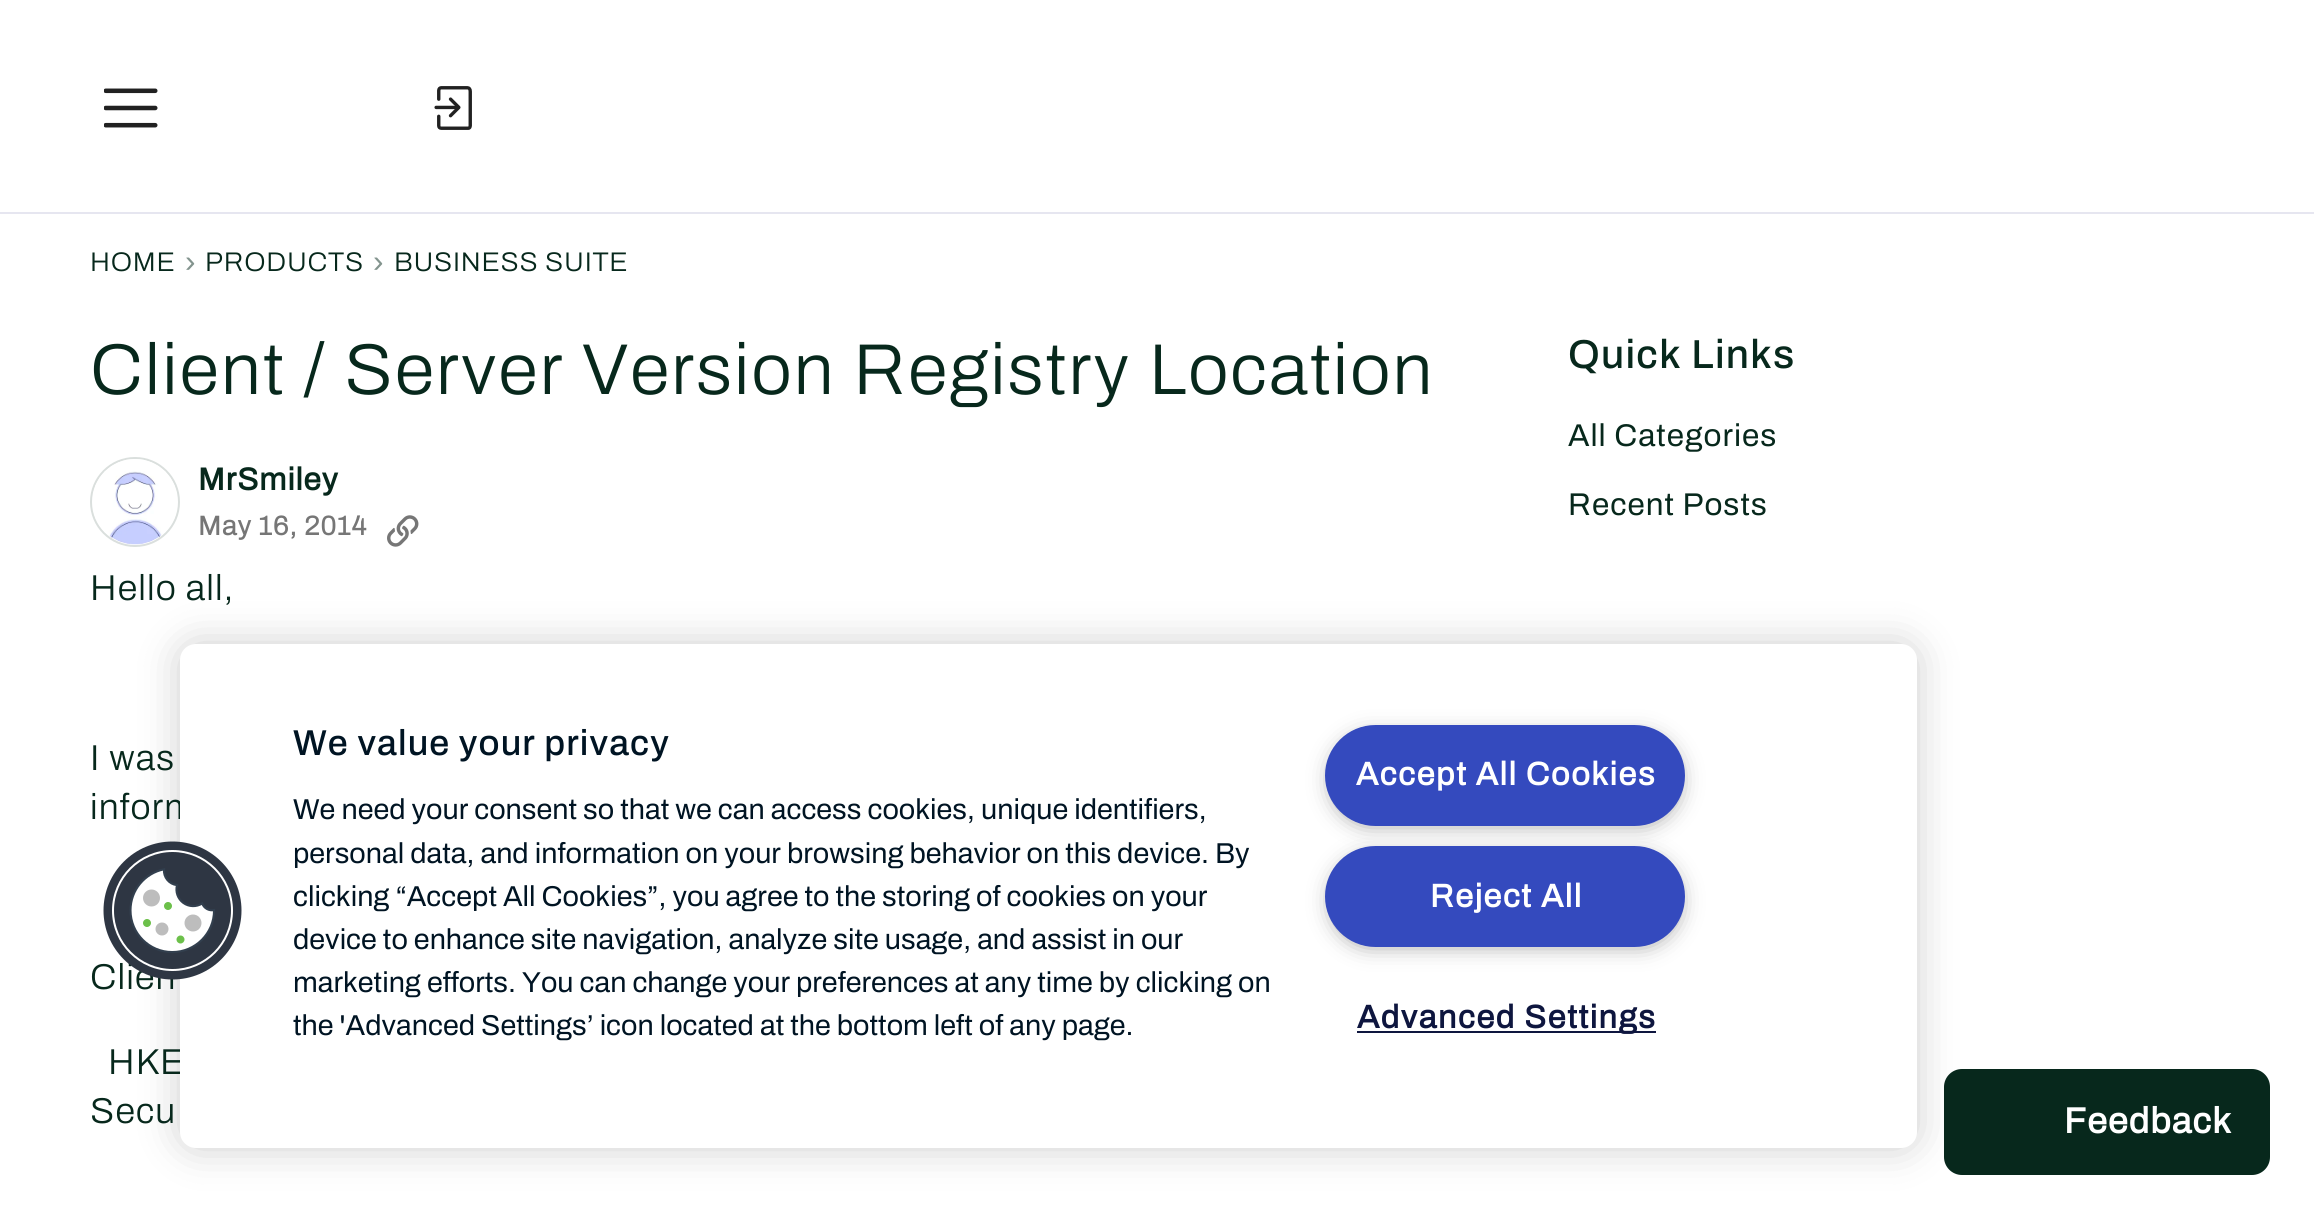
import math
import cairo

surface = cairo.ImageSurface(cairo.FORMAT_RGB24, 2314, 1219)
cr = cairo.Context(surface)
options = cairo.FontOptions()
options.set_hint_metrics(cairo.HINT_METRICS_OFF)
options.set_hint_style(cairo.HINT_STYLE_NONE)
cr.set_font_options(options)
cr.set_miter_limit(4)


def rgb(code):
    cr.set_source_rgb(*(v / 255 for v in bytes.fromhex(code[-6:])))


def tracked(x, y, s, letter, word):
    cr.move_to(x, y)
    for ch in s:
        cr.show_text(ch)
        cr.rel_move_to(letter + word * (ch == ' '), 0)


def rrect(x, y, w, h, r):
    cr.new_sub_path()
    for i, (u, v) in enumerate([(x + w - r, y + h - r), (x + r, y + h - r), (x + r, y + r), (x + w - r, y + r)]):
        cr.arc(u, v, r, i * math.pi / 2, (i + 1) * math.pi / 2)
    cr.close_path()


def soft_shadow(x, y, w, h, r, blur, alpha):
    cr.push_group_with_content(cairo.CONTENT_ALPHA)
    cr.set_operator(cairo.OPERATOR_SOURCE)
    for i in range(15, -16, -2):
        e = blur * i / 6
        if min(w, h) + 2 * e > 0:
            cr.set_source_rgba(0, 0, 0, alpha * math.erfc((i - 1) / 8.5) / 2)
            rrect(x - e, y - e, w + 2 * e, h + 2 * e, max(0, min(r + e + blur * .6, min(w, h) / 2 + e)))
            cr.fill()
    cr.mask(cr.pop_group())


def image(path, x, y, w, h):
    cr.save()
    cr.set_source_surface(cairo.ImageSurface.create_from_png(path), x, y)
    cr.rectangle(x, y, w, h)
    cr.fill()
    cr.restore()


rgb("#ffffff")
cr.paint()
image("img/1.png", 104, 88, 54, 40)
image("img/2.png", 434, 86, 38, 44)
rgb("#e6e6f0")
cr.rectangle(0, 212, 2314, 2)
cr.fill()
cr.arc(135, 502, 44, 0, 2 * math.pi)
rgb("#dadfdd")
cr.stroke()
image("img/3.png", 93, 459, 84, 86)
image("img/4.png", 387, 515, 32, 32)
rgb("#07281c")
rrect(1945, 1070, 324, 104, 17)
cr.fill_preserve()
cr.stroke()
rgb("#000000")
soft_shadow(180, 644, 1737, 504, 16, 20, 0.2)
cr.select_font_face("Archivo Light")
cr.set_font_size(27)
rgb("#07281c")
tracked(90, 271, "HOME", 0.75, 0)
cr.select_font_face("Liberation Sans")
cr.set_font_size(31.5)
rgb("#83948e")
tracked(185, 272, "›", 1, 0)
cr.select_font_face("Archivo Light")
cr.set_font_size(27)
rgb("#07281c")
tracked(205, 271, "PRODUCTS", 0.75, 0)
cr.select_font_face("Liberation Sans")
cr.set_font_size(31.5)
rgb("#83948e")
tracked(373, 272, "›", 1, 0)
cr.select_font_face("Archivo Light")
cr.set_font_size(27)
rgb("#07281c")
tracked(394, 271, "BUSINESS SUITE", 0.75, 0)
cr.set_font_size(72)
tracked(90, 394, "Client / Server Version Registry Location", 2.15, 0)
cr.select_font_face("Archivo", cairo.FONT_SLANT_NORMAL, cairo.FONT_WEIGHT_BOLD)
cr.set_font_size(31.5)
tracked(198, 490, "MrSmiley", 1, 0)
cr.select_font_face("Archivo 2", cairo.FONT_SLANT_NORMAL, cairo.FONT_WEIGHT_BOLD)
cr.set_font_size(27)
rgb("#767676")
tracked(198, 535, "May 16, 2014", 1, 0)
cr.select_font_face("Archivo Light")
cr.set_font_size(36)
rgb("#07281c")
for x, y, s in [
    (90, 600, "Hello all,"),
    (90, 770, "I was"),
    (90, 819, "inform"),
    (90, 989, "Clien"),
    (108, 1074, "HKE"),
    (90, 1123, "Secu"),
]:
    tracked(x, y, s, 1.1, 0)
cr.select_font_face("Archivo Medium")
cr.set_font_size(40.5)
tracked(1568, 368, "Quick Links", 1.25, 0)
cr.select_font_face("Archivo")
cr.set_font_size(31.5)
tracked(1568, 446, "All Categories", 1, 0)
tracked(1568, 515, "Recent Posts", 1, 0)
cr.select_font_face("Archivo", cairo.FONT_SLANT_NORMAL, cairo.FONT_WEIGHT_BOLD)
cr.set_font_size(36)
rgb("#ffffff")
tracked(2064, 1133, "Feedback", 1.1, 0)
rrect(180, 644, 1737, 504, 16)
cr.fill()
image("img/5.png", 103, 841, 139, 139)
cr.select_font_face("Archivo Medium")
rgb("#001423")
tracked(293, 755, "We value your privacy", 1.1, 0)
cr.select_font_face("Archivo")
cr.set_font_size(28.8)
for x, y, s in [
    (293, 819, "We need your consent so that we can access cookies, unique identifiers,"),
    (293, 863, "personal data, and information on your browsing behavior on this device. By"),
    (293, 906, "clicking “Accept All Cookies”, you agree to the storing of cookies on your"),
    (293, 949, "device to enhance site navigation, analyze site usage, and assist in our"),
    (293, 992, "marketing efforts. You can change your preferences at any time by clicking on"),
    (293, 1035, "the 'Advanced Settings’ icon located at the bottom left of any page."),
]:
    cr.move_to(x, y)
    cr.show_text(s)
rgb("#999999")
soft_shadow(1332, 736, 347, 88, 44, 11, 1)
rgb("#344abe")
rrect(1326, 726, 358, 99, 49.5)
cr.fill_preserve()
cr.stroke()
cr.select_font_face("Archivo", cairo.FONT_SLANT_NORMAL, cairo.FONT_WEIGHT_BOLD)
cr.set_font_size(32.5)
rgb("#ffffff")
tracked(1356, 785, "Accept All Cookies", 1.6, 0)
rgb("#999999")
soft_shadow(1332, 857, 347, 88, 44, 11, 1)
rgb("#344abe")
rrect(1326, 847, 358, 99, 49.5)
cr.fill_preserve()
cr.stroke()
rgb("#ffffff")
tracked(1430, 907, "Reject All", 1.6, 0)
rgb("#0e163f")
cr.rectangle(1357, 1031, 299, 2)
cr.fill()
tracked(1357, 1028, "Advanced Settings", 1.6, 0)
surface.write_to_png("page.png")
